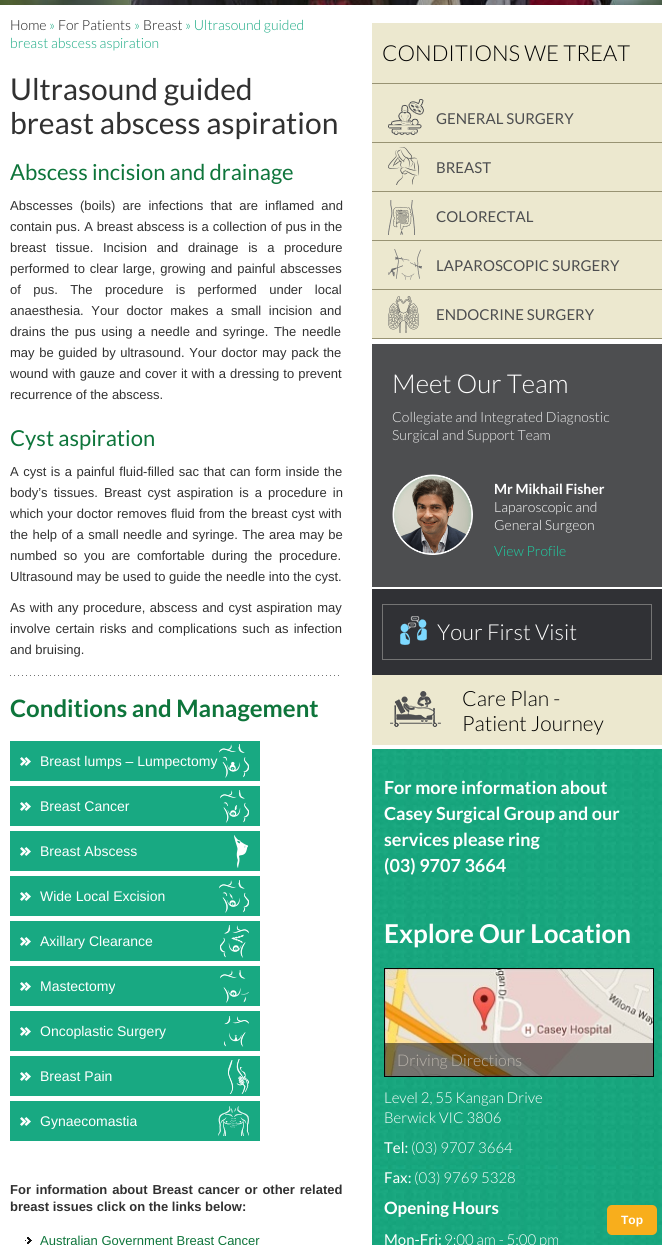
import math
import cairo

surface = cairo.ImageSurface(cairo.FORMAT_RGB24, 662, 1245)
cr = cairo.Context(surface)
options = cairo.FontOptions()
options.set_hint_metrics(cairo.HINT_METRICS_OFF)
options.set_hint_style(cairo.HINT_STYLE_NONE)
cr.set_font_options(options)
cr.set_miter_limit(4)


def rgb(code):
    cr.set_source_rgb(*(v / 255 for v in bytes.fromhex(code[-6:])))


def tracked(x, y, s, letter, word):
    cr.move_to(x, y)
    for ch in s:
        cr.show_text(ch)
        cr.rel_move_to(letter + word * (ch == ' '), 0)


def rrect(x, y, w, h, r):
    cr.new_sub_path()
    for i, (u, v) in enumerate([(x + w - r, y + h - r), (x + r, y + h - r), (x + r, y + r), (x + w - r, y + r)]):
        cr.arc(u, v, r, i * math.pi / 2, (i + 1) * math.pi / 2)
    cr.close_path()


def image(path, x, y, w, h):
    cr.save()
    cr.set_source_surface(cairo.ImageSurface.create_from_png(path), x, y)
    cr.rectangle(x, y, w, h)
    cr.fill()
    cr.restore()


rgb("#ffffff")
cr.paint()
image("img/1.png", 0, 0, 662, 5)
image("img/2.png", 10, 675, 329, 1)
rgb("#18a982")
cr.rectangle(10, 741, 250, 40)
cr.fill()
image("img/3.png", 20, 757, 11, 9)
image("img/4.png", 219, 744, 30, 34)
cr.rectangle(10, 786, 250, 40)
cr.fill()
image("img/3.png", 20, 802, 11, 9)
image("img/5.png", 220, 790, 29, 33)
cr.rectangle(10, 831, 250, 40)
cr.fill()
image("img/3.png", 20, 847, 11, 9)
image("img/6.png", 234, 835, 14, 33)
cr.rectangle(10, 876, 250, 40)
cr.fill()
image("img/3.png", 20, 892, 11, 9)
image("img/7.png", 219, 880, 30, 33)
cr.rectangle(10, 921, 250, 40)
cr.fill()
image("img/3.png", 20, 937, 11, 9)
image("img/8.png", 220, 925, 29, 33)
cr.rectangle(10, 966, 250, 40)
cr.fill()
image("img/3.png", 20, 982, 11, 9)
image("img/9.png", 220, 970, 29, 33)
cr.rectangle(10, 1011, 250, 40)
cr.fill()
image("img/3.png", 20, 1027, 11, 9)
image("img/10.png", 224, 1016, 25, 31)
cr.rectangle(10, 1056, 250, 40)
cr.fill()
image("img/3.png", 20, 1072, 11, 9)
image("img/11.png", 228, 1059, 21, 35)
cr.rectangle(10, 1101, 250, 40)
cr.fill()
image("img/3.png", 20, 1117, 11, 9)
image("img/12.png", 218, 1106, 31, 30)
image("img/13.png", 25, 1237, 7, 7)
for x, y, w, h, color in [
    (372, 23, 290, 315, "#ece8cf"),
    (372, 83, 290, 1, "#989373"),
    (372, 142, 290, 1, "#989373"),
]:
    rgb(color)
    cr.rectangle(x, y, w, h)
    cr.fill()
image("img/14.png", 388, 99, 36, 36)
cr.rectangle(372, 191, 290, 1)
cr.fill()
image("img/15.png", 388, 147, 31, 38)
cr.rectangle(372, 240, 290, 1)
cr.fill()
image("img/16.png", 388, 200, 27, 35)
cr.rectangle(372, 289, 290, 1)
cr.fill()
image("img/17.png", 388, 249, 34, 31)
cr.rectangle(372, 338, 290, 1)
cr.fill()
image("img/18.png", 388, 296, 31, 37)
rgb("#4d4e50")
cr.rectangle(372, 344, 290, 243)
cr.fill()
image("img/19.png", 392, 474, 81, 81)
rgb("#303135")
cr.rectangle(372, 589, 290, 86)
cr.fill()
image("img/20.png", 400, 616, 27, 29)
cr.rectangle(382.5, 604.5, 269, 55)
rgb("#747474")
cr.set_line_width(1)
cr.stroke()
rgb("#ece8cf")
cr.rectangle(372, 675, 290, 70)
cr.fill()
image("img/21.png", 390, 691, 51, 36)
image("img/22.png", 372, 749, 290, 496)
image("img/23.png", 384, 968, 270, 109)
cr.set_source_rgba(0, 0, 0, 0.5)
cr.rectangle(384, 1043, 270, 34)
cr.fill()
cr.set_source_rgba(0.98, 0.686, 0.11, 0.99)
rrect(607, 1205, 50, 30, 5)
cr.fill()
cr.select_font_face("Lato Light")
cr.set_font_size(14)
rgb("#1c1c1c")
cr.move_to(10, 30)
cr.show_text("Home")
rgb("#18a982")
cr.move_to(49, 30)
cr.show_text("»")
rgb("#1c1c1c")
cr.move_to(58, 30)
cr.show_text("For Patients")
rgb("#18a982")
cr.move_to(134, 30)
cr.show_text("»")
rgb("#1c1c1c")
cr.move_to(143, 30)
cr.show_text("Breast")
rgb("#18a982")
cr.move_to(185, 30)
cr.show_text("» Ultrasound guided")
cr.move_to(10, 48)
cr.show_text("breast abscess aspiration")
cr.select_font_face("Lato")
cr.set_font_size(30)
rgb("#313131")
cr.move_to(10, 100)
cr.show_text("Ultrasound guided")
cr.move_to(10, 134)
cr.show_text("breast abscess aspiration")
cr.set_font_size(22)
rgb("#0e753b")
cr.move_to(10, 180)
cr.show_text("Abscess incision and drainage")
cr.select_font_face("Liberation Sans")
cr.set_font_size(13)
rgb("#313131")
tracked(10, 210, "Abscesses (boils) are infections that are inflamed and", 0, 3.5)
tracked(10, 231, "contain pus. A breast abscess is a collection of pus in the", 0, 0.25)
tracked(10, 252, "breast tissue. Incision and drainage is a procedure", 0, 6)
tracked(10, 273, "performed to clear large, growing and painful abscesses", 0, 1.25)
tracked(10, 294, "of pus. The procedure is performed under local", 0, 8.75)
tracked(10, 315, "anaesthesia. Your doctor makes a small incision and", 0, 4)
tracked(10, 336, "drains the pus using a needle and syringe. The needle", 0, 2)
tracked(10, 357, "may be guided by ultrasound. Your doctor may pack the", 0, 1)
tracked(10, 378, "wound with gauze and cover it with a dressing to prevent", 0, 0.5)
cr.move_to(10, 399)
cr.show_text("recurrence of the abscess.")
cr.select_font_face("Lato")
cr.set_font_size(22)
rgb("#0e753b")
cr.move_to(10, 446)
cr.show_text("Cyst aspiration")
cr.select_font_face("Liberation Sans")
cr.set_font_size(13)
rgb("#313131")
tracked(10, 476, "A cyst is a painful fluid-filled sac that can form inside the", 0, 0.9)
tracked(10, 497, "body’s tissues. Breast cyst aspiration is a procedure in", 0, 2.5)
tracked(10, 518, "which your doctor removes fluid from the breast cyst with", 0, 0.5)
tracked(10, 539, "the help of a small needle and syringe. The area may be", 0, 0.75)
tracked(10, 560, "numbed so you are comfortable during the procedure.", 0, 3)
cr.move_to(10, 581)
cr.show_text("Ultrasound may be used to guide the needle into the cyst.")
tracked(10, 612, "As with any procedure, abscess and cyst aspiration may", 0, 1)
tracked(10, 633, "involve certain risks and complications such as infection", 0, 1.5)
cr.move_to(10, 654)
cr.show_text("and bruising.")
cr.select_font_face("Lato", cairo.FONT_SLANT_NORMAL, cairo.FONT_WEIGHT_BOLD)
cr.set_font_size(24)
rgb("#0e753b")
cr.move_to(10, 717)
cr.show_text("Conditions and Management")
cr.select_font_face("Liberation Sans")
cr.set_font_size(14)
rgb("#ffffff")
for x, y, s in [
    (40, 766, "Breast lumps – Lumpectomy"),
    (40, 811, "Breast Cancer"),
    (40, 856, "Breast Abscess"),
    (40, 901, "Wide Local Excision"),
    (40, 946, "Axillary Clearance"),
    (40, 991, "Mastectomy"),
    (40, 1036, "Oncoplastic Surgery"),
    (40, 1081, "Breast Pain"),
    (40, 1126, "Gynaecomastia"),
]:
    cr.move_to(x, y)
    cr.show_text(s)
cr.select_font_face("Liberation Sans", cairo.FONT_SLANT_NORMAL, cairo.FONT_WEIGHT_BOLD)
cr.set_font_size(13)
rgb("#313131")
tracked(10, 1194, "For information about Breast cancer or other related", 0, 1.25)
cr.move_to(10, 1211)
cr.show_text("breast issues click on the links below:")
cr.select_font_face("Liberation Sans")
rgb("#0e753b")
cr.move_to(40, 1245)
cr.show_text("Australian Government Breast Cancer")
cr.select_font_face("Lato Light")
cr.set_font_size(22)
rgb("#000000")
cr.move_to(382, 61)
cr.show_text("CONDITIONS WE TREAT")
cr.select_font_face("Lato")
cr.set_font_size(15)
rgb("#4d4e50")
for x, y, s in [
    (436, 124, "GENERAL SURGERY"),
    (436, 173, "BREAST"),
    (436, 222, "COLORECTAL"),
    (436, 271, "LAPAROSCOPIC SURGERY"),
    (436, 320, "ENDOCRINE SURGERY"),
]:
    cr.move_to(x, y)
    cr.show_text(s)
cr.select_font_face("Lato Light")
cr.set_font_size(26)
rgb("#ffffff")
cr.move_to(392, 393)
cr.show_text("Meet Our Team")
cr.set_font_size(14)
rgb("#eeeeee")
cr.move_to(392, 422)
cr.show_text("Collegiate and Integrated Diagnostic")
cr.move_to(392, 440)
cr.show_text("Surgical and Support Team")
cr.select_font_face("Lato", cairo.FONT_SLANT_NORMAL, cairo.FONT_WEIGHT_BOLD)
rgb("#ffffff")
cr.move_to(494, 494)
cr.show_text("Mr Mikhail Fisher")
cr.select_font_face("Lato Light")
cr.move_to(494, 512)
cr.show_text("Laparoscopic and")
cr.move_to(494, 530)
cr.show_text("General Surgeon")
rgb("#1cd3a5")
cr.move_to(494, 556)
cr.show_text("View Profile")
cr.set_font_size(22)
rgb("#ffffff")
cr.move_to(437, 640)
cr.show_text("Your First Visit")
cr.set_font_size(21)
rgb("#000000")
cr.move_to(462, 706)
cr.show_text("Care Plan -")
cr.move_to(462, 731)
cr.show_text("Patient Journey")
cr.select_font_face("Lato", cairo.FONT_SLANT_NORMAL, cairo.FONT_WEIGHT_BOLD)
cr.set_font_size(18)
rgb("#ffffff")
for x, y, s in [
    (384, 794, "For more information about"),
    (384, 820, "Casey Surgical Group and our"),
    (384, 846, "services please ring"),
    (384, 872, "(03) 9707 3664"),
]:
    cr.move_to(x, y)
    cr.show_text(s)
cr.set_font_size(26)
cr.move_to(384, 943)
cr.show_text("Explore Our Location")
cr.select_font_face("Lato Light")
cr.set_font_size(16)
rgb("#bab4ab")
cr.move_to(397, 1066)
cr.show_text("Driving Directions")
cr.set_font_size(15)
rgb("#ffffff")
cr.move_to(384, 1103)
cr.show_text("Level 2, 55 Kangan Drive")
cr.move_to(384, 1123)
cr.show_text("Berwick VIC 3806")
cr.select_font_face("Lato")
cr.move_to(384, 1153)
cr.show_text("Tel:")
cr.select_font_face("Lato Light")
cr.move_to(411, 1153)
cr.show_text("(03) 9707 3664")
cr.select_font_face("Lato")
cr.move_to(384, 1183)
cr.show_text("Fax:")
cr.select_font_face("Lato Light")
cr.move_to(414, 1183)
cr.show_text("(03) 9769 5328")
cr.select_font_face("Lato", cairo.FONT_SLANT_NORMAL, cairo.FONT_WEIGHT_BOLD)
cr.set_font_size(17)
cr.move_to(384, 1214)
cr.show_text("Opening Hours")
cr.select_font_face("Lato")
cr.set_font_size(15)
cr.move_to(384, 1245)
cr.show_text("Mon-Fri:")
cr.select_font_face("Lato Light")
cr.move_to(444, 1245)
cr.show_text("9:00 am - 5:00 pm")
cr.select_font_face("Liberation Sans", cairo.FONT_SLANT_NORMAL, cairo.FONT_WEIGHT_BOLD)
cr.set_font_size(12)
cr.move_to(621, 1224)
cr.show_text("Top")
surface.write_to_png("page.png")
